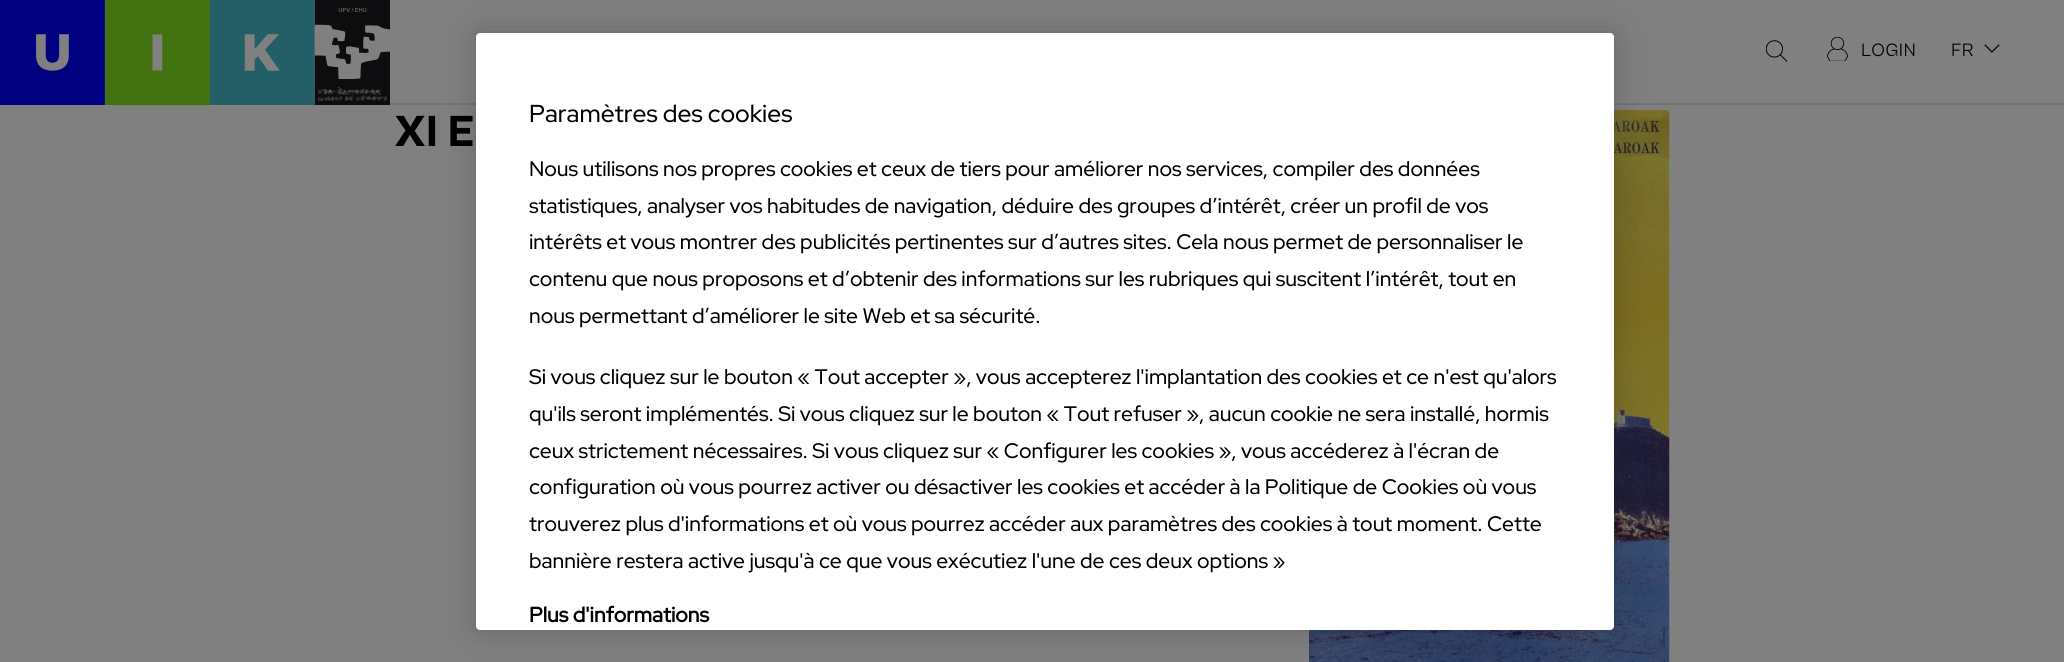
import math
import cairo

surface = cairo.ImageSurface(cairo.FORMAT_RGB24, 2064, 662)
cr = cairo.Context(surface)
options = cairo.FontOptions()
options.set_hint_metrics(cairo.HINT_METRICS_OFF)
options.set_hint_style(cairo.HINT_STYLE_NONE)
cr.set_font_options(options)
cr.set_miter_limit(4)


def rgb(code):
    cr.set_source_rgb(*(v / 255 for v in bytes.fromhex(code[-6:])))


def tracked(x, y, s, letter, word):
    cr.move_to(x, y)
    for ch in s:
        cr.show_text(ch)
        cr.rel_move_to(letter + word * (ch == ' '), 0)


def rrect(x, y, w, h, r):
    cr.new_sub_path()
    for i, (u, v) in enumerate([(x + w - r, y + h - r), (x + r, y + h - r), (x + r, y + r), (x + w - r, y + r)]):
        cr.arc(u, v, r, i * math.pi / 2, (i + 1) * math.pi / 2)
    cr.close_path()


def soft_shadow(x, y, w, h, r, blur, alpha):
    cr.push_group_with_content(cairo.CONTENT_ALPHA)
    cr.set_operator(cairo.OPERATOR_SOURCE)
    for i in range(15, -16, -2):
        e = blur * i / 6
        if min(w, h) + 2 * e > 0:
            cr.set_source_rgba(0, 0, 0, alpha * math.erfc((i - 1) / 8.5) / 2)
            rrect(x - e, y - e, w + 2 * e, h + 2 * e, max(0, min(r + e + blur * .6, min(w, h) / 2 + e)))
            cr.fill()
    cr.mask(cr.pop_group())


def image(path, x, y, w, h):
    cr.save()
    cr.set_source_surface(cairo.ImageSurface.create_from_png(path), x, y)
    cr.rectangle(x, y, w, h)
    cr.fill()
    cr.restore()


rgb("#808080")
cr.paint()
rgb("#737373")
cr.rectangle(104, 103, 1960, 2)
cr.fill()
image("img/1.png", 0, 0, 390, 105)
image("img/2.png", 1766, 40, 21, 22)
image("img/3.png", 1827, 37, 21, 24)
image("img/4.png", 1984, 44, 16, 9)
image("img/5.png", 1309, 110, 361, 552)
rgb("#000000")
soft_shadow(476, 33, 1138, 597, 4, 16, 0.2)
rgb("#ffffff")
rrect(476, 33, 1138, 597, 4)
cr.fill()
cr.select_font_face("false")
cr.set_font_size(18.5)
rgb("#000000")
tracked(1861, 56, "LOGIN", 0.5, 0)
tracked(1951, 56, "FR", 0.5, 0)
cr.select_font_face("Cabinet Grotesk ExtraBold")
cr.set_font_size(45)
tracked(395, 146, "XI E", 1, 0)
cr.select_font_face("Red Hat Display Medium")
cr.set_font_size(24.5)
cr.move_to(529, 122)
cr.show_text("Paramètres des cookies")
cr.set_font_size(21)
for x, y, s in [
    (529, 176, "Nous utilisons nos propres cookies et ceux de tiers pour améliorer nos services, compiler des données"),
    (529, 213, "statistiques, analyser vos habitudes de navigation, déduire des groupes d’intérêt, créer un profil de vos"),
    (529, 249, "intérêts et vous montrer des publicités pertinentes sur d’autres sites. Cela nous permet de personnaliser le"),
    (529, 286, "contenu que nous proposons et d’obtenir des informations sur les rubriques qui suscitent l’intérêt, tout en"),
    (529, 323, "nous permettant d’améliorer le site Web et sa sécurité."),
    (529, 384, "Si vous cliquez sur le bouton « Tout accepter », vous accepterez l'implantation des cookies et ce n'est qu'alors"),
    (529, 421, "qu'ils seront implémentés. Si vous cliquez sur le bouton « Tout refuser », aucun cookie ne sera installé, hormis"),
    (529, 458, "ceux strictement nécessaires. Si vous cliquez sur « Configurer les cookies », vous accéderez à l'écran de"),
    (529, 494, "configuration où vous pourrez activer ou désactiver les cookies et accéder à la Politique de Cookies où vous"),
    (529, 531, "trouverez plus d'informations et où vous pourrez accéder aux paramètres des cookies à tout moment. Cette"),
    (529, 568, "bannière restera active jusqu'à ce que vous exécutiez l'une de ces deux options »"),
]:
    cr.move_to(x, y)
    cr.show_text(s)
cr.select_font_face("Red Hat Display", cairo.FONT_SLANT_NORMAL, cairo.FONT_WEIGHT_BOLD)
cr.move_to(529, 622)
cr.show_text("Plus d'informations")
surface.write_to_png("page.png")
